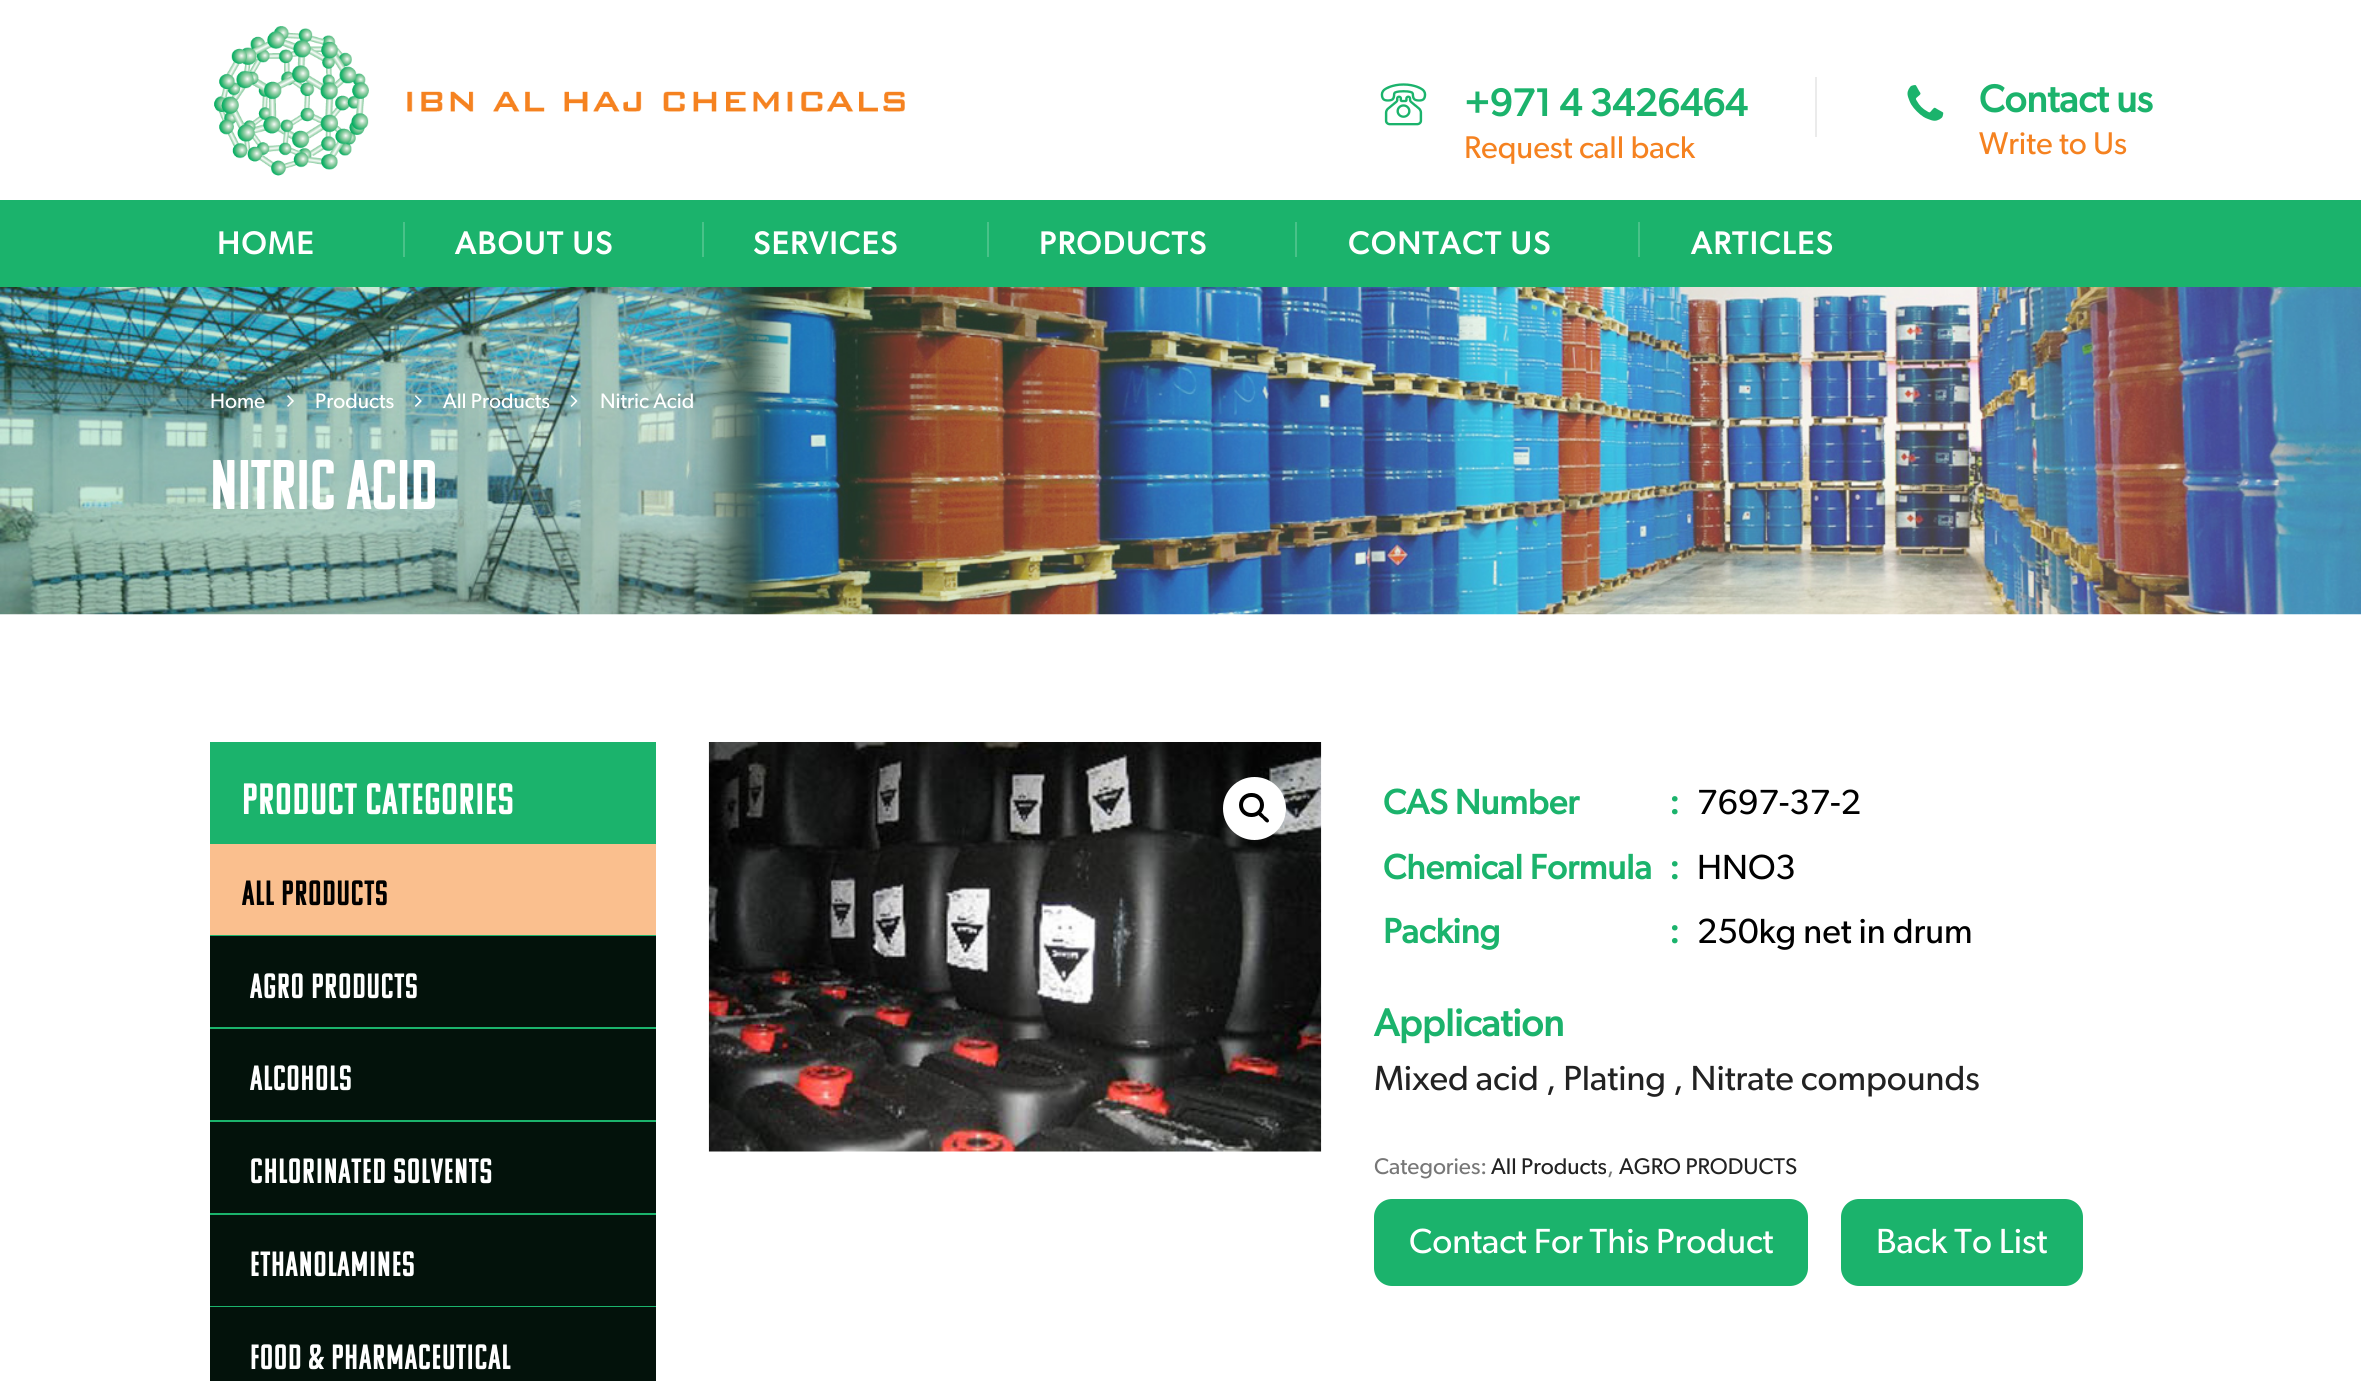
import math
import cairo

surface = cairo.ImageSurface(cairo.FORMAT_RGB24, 2361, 1381)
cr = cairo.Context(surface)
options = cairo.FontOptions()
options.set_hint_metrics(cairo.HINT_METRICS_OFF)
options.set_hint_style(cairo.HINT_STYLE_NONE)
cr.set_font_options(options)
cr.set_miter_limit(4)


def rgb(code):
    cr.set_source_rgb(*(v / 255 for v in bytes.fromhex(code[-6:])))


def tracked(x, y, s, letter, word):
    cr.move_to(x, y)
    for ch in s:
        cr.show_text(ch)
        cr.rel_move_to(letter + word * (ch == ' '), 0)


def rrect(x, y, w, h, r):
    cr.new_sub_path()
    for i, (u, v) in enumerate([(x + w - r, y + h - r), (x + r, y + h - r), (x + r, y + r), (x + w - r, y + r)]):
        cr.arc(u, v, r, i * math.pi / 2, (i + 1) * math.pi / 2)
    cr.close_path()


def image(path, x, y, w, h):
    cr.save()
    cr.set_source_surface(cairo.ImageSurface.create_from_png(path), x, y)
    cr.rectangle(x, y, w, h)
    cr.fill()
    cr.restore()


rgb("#ffffff")
cr.paint()
image("img/1.png", 214, 26, 691, 150)
image("img/2.png", 1380, 83, 47, 43)
rgb("#ebebeb")
cr.rectangle(1815, 77, 2, 60)
cr.fill()
image("img/3.png", 1907, 85, 37, 36)
for x, y, w, h, color in [
    (0, 200, 2361, 87, "#1bb36c"),
    (403, 222, 2, 35, "#49c289"),
    (702, 222, 2, 35, "#49c289"),
    (987, 222, 2, 35, "#49c289"),
    (1295, 222, 2, 35, "#49c289"),
    (1638, 222, 2, 35, "#49c289"),
]:
    rgb(color)
    cr.rectangle(x, y, w, h)
    cr.fill()
image("img/4.png", 0, 287, 2361, 328)
image("img/5.png", 287, 395, 7, 12)
image("img/6.png", 415, 395, 7, 12)
image("img/7.png", 570, 395, 8, 12)
for x, y, w, h, color in [
    (210, 742, 446, 102, "#1bb36c"),
    (210, 844, 446, 91, "#fabf8e"),
    (210, 935, 446, 1, "#1bb36c"),
    (210, 936, 446, 91, "#03120b"),
    (210, 1027, 446, 2, "#1bb36c"),
    (210, 1029, 446, 91, "#03120b"),
    (210, 1120, 446, 2, "#1bb36c"),
    (210, 1122, 446, 91, "#03120b"),
    (210, 1213, 446, 2, "#1bb36c"),
    (210, 1215, 446, 91, "#03120b"),
    (210, 1306, 446, 1, "#1bb36c"),
    (210, 1307, 446, 74, "#03120b"),
]:
    rgb(color)
    cr.rectangle(x, y, w, h)
    cr.fill()
image("img/8.png", 708, 742, 614, 410)
rgb("#ffffff")
cr.arc(1254.5, 808.5, 31.5, 0, 2 * math.pi)
cr.fill()
rrect(1241, 795, 21, 20, 10)
rgb("#000000")
cr.set_line_width(4)
cr.stroke()
cr.new_path()
cr.move_to(1258.5, 812.5)
cr.curve_to(1260.5, 810.5, 1263.5, 815, 1264.5, 816)
cr.curve_to(1266, 817, 1270.5, 820, 1268.5, 822)
cr.curve_to(1266.5, 824, 1263.5, 819.5, 1262.5, 818.5)
cr.curve_to(1261, 817.5, 1256.5, 814.5, 1258.5, 812.5)
cr.close_path()
cr.fill()
rgb("#1bb36c")
rrect(1374, 1199, 434, 87, 18)
cr.fill()
rrect(1841, 1199, 242, 87, 18)
cr.fill()
cr.select_font_face("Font", cairo.FONT_SLANT_NORMAL, cairo.FONT_WEIGHT_BOLD)
cr.set_font_size(38.5)
cr.move_to(1464, 116)
cr.show_text("+971 4 3426464")
cr.select_font_face("Font")
cr.set_font_size(31.5)
rgb("#f58220")
cr.move_to(1464, 158)
cr.show_text("Request call back")
cr.select_font_face("Font", cairo.FONT_SLANT_NORMAL, cairo.FONT_WEIGHT_BOLD)
cr.set_font_size(38.5)
rgb("#1bb36c")
cr.move_to(1979, 112)
cr.show_text("Contact us")
cr.select_font_face("Font")
cr.set_font_size(31.5)
rgb("#f58220")
cr.move_to(1979, 154)
cr.show_text("Write to Us")
cr.select_font_face("Font", cairo.FONT_SLANT_NORMAL, cairo.FONT_WEIGHT_BOLD)
rgb("#ffffff")
for x, y, s in [
    (217, 254, "HOME"),
    (455, 254, "ABOUT US"),
    (753, 254, "SERVICES"),
    (1039, 254, "PRODUCTS"),
    (1348, 254, "CONTACT US"),
    (1691, 254, "ARTICLES"),
]:
    tracked(x, y, s, 1.75, 0)
cr.select_font_face("Font")
cr.set_font_size(21)
for x, y, s in [
    (210, 408, "Home"),
    (315, 408, "Products"),
    (443, 408, "All Products"),
    (600, 408, "Nitric Acid"),
]:
    cr.move_to(x, y)
    cr.show_text(s)
cr.select_font_face("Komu")
cr.set_font_size(70)
cr.move_to(210, 509)
cr.show_text("NITRIC ACID")
cr.set_font_size(43.75)
tracked(242, 814, "Product categories", 0.9, 0)
cr.set_font_size(35)
rgb("#000000")
tracked(242, 905, "All Products", 0.9, 0)
rgb("#ffffff")
for x, y, s in [
    (250, 998, "AGRO PRODUCTS"),
    (250, 1090, "ALCOHOLS"),
    (250, 1183, "CHLORINATED SOLVENTS"),
    (250, 1276, "ETHANOLAMINES"),
    (250, 1369, "FOOD & PHARMACEUTICAL"),
]:
    tracked(x, y, s, 0.9, 0)
cr.select_font_face("Font", cairo.FONT_SLANT_NORMAL, cairo.FONT_WEIGHT_BOLD)
rgb("#1bb36c")
cr.move_to(1383, 814)
cr.show_text("CAS Number")
cr.move_to(1669, 814)
cr.show_text(":")
cr.select_font_face("Font")
rgb("#000000")
cr.move_to(1697, 814)
cr.show_text("7697-37-2")
cr.select_font_face("Font", cairo.FONT_SLANT_NORMAL, cairo.FONT_WEIGHT_BOLD)
rgb("#1bb36c")
cr.move_to(1383, 879)
cr.show_text("Chemical Formula")
cr.move_to(1669, 879)
cr.show_text(":")
cr.select_font_face("Font")
rgb("#000000")
cr.move_to(1697, 879)
cr.show_text("HNO3")
cr.select_font_face("Font", cairo.FONT_SLANT_NORMAL, cairo.FONT_WEIGHT_BOLD)
rgb("#1bb36c")
cr.move_to(1383, 943)
cr.show_text("Packing")
cr.move_to(1669, 943)
cr.show_text(":")
cr.select_font_face("Font")
rgb("#000000")
cr.move_to(1697, 943)
cr.show_text("250kg net in drum")
cr.select_font_face("Font", cairo.FONT_SLANT_NORMAL, cairo.FONT_WEIGHT_BOLD)
cr.set_font_size(38.5)
rgb("#1bb36c")
cr.move_to(1374, 1036)
cr.show_text("Application")
cr.select_font_face("Font")
cr.set_font_size(35)
rgb("#222222")
cr.move_to(1374, 1090)
cr.show_text("Mixed acid , Plating , Nitrate compounds")
cr.set_font_size(22.75)
rgb("#777777")
cr.move_to(1374, 1174)
cr.show_text("Categories:")
rgb("#222222")
cr.move_to(1491, 1174)
cr.show_text("All Products")
rgb("#777777")
cr.move_to(1607, 1174)
cr.show_text(",")
rgb("#222222")
cr.move_to(1619, 1174)
cr.show_text("AGRO PRODUCTS")
cr.set_font_size(35)
rgb("#ffffff")
cr.move_to(1409, 1253)
cr.show_text("Contact For This Product")
cr.move_to(1876, 1253)
cr.show_text("Back To List")
surface.write_to_png("page.png")
